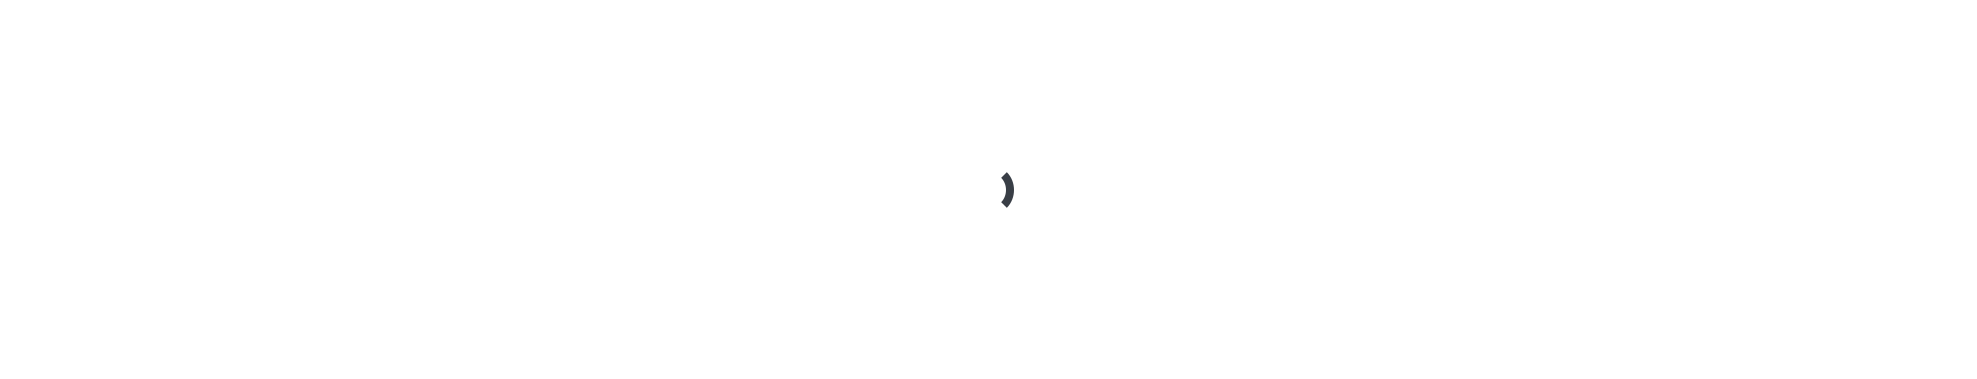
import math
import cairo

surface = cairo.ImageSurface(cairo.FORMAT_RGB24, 1977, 379)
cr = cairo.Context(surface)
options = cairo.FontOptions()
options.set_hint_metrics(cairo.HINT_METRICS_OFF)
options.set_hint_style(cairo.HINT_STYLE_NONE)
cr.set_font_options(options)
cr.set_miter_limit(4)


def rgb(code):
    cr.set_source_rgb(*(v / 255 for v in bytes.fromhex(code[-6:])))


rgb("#ffffff")
cr.paint()
cr.new_path()
cr.move_to(1004, 175)
cr.curve_to(1012, 183, 1012, 197, 1004, 205)
cr.move_to(1004, 175)
cr.curve_to(1012, 183, 1012, 197, 1004, 205)
cr.move_to(1004, 175)
cr.curve_to(1012, 183, 1012, 197, 1004, 205)
rgb("#393e46")
cr.set_line_width(8)
cr.stroke()
surface.write_to_png("page.png")
